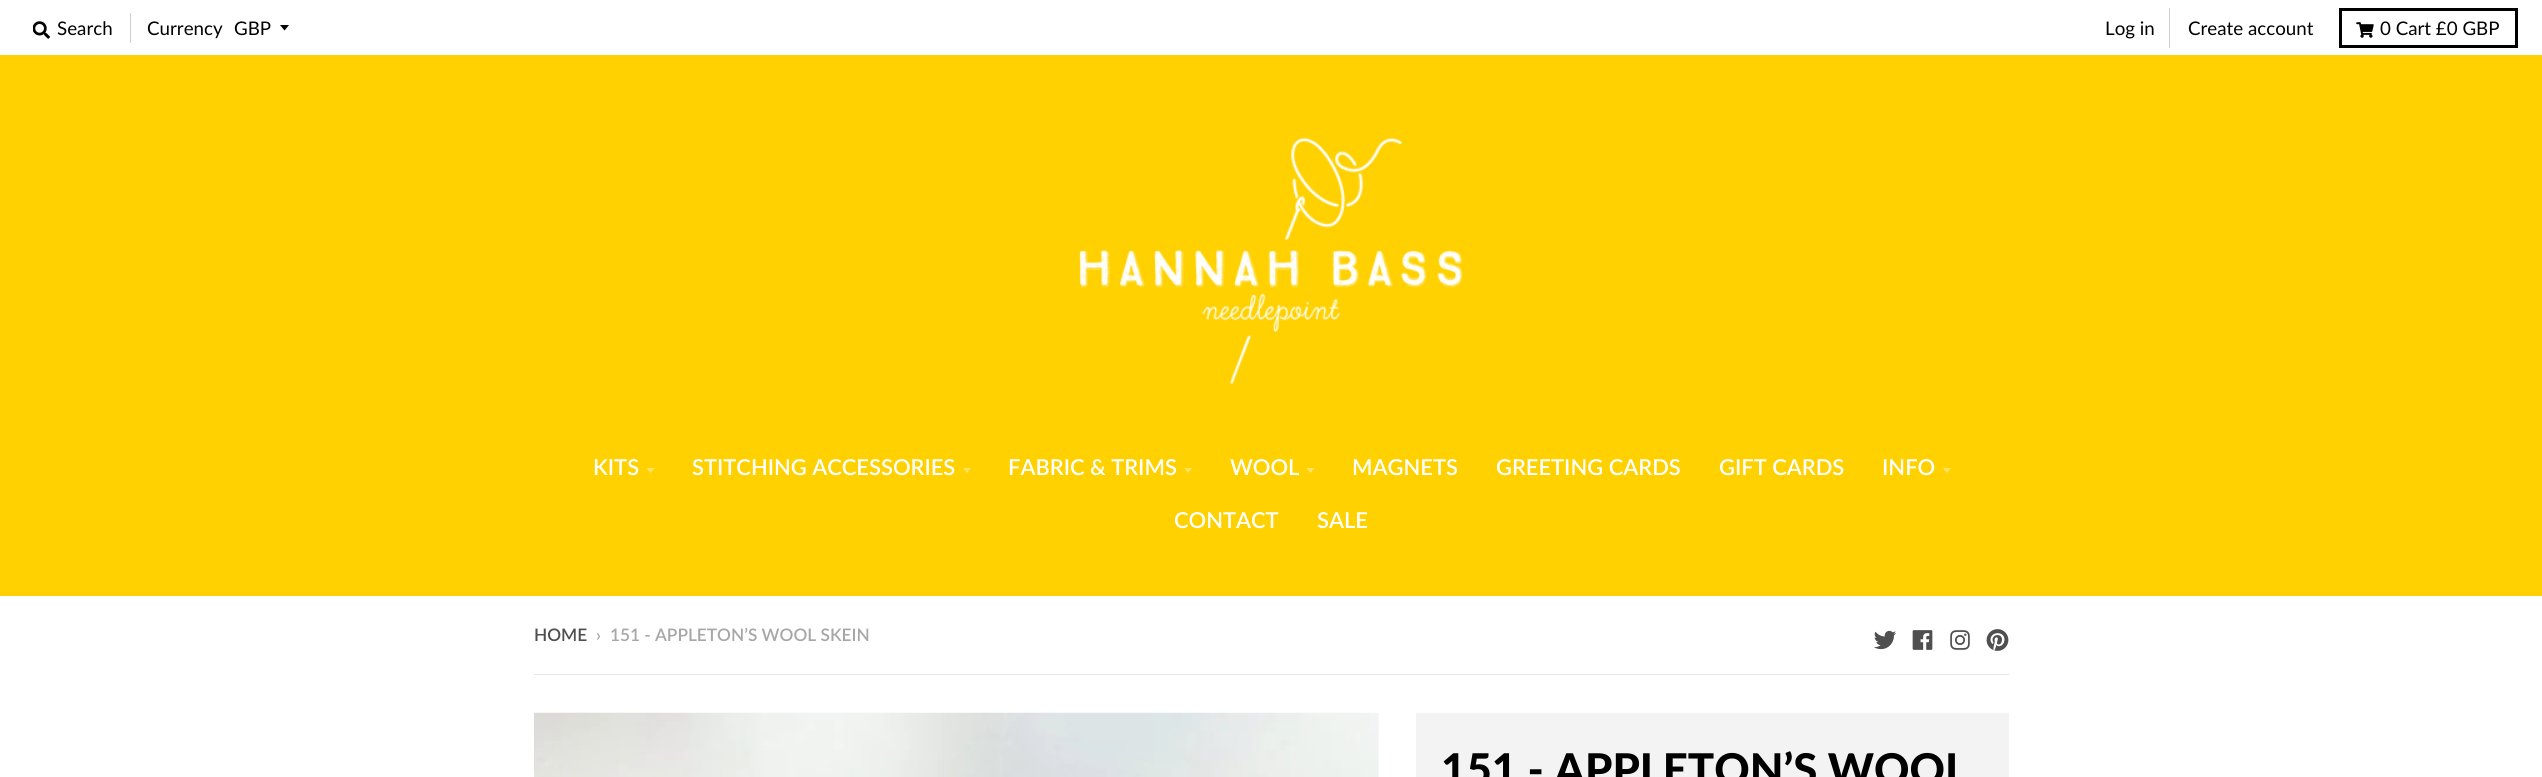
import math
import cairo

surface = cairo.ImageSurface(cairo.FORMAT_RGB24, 2542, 777)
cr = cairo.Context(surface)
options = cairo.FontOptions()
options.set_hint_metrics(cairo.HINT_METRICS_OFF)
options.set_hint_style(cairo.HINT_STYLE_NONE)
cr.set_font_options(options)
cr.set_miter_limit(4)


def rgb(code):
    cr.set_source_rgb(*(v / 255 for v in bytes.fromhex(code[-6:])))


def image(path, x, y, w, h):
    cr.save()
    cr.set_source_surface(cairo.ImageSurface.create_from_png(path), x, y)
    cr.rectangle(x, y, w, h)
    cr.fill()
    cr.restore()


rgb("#ffffff")
cr.paint()
image("img/1.png", 33, 21, 17, 18)
rgb("#cccccc")
cr.rectangle(130, 13, 1, 30)
cr.fill()
rgb("#000000")
cr.new_path()
cr.move_to(280, 25)
cr.line_to(284.5, 30.5)
cr.line_to(289, 25)
cr.close_path()
cr.fill()
rgb("#cccccc")
cr.rectangle(2169, 8, 1, 40)
cr.fill()
cr.rectangle(2340.5, 9.5, 176, 37)
rgb("#000000")
cr.set_line_width(3)
cr.stroke()
image("img/2.png", 2356, 22, 18, 16)
rgb("#ffd100")
cr.rectangle(0, 55, 2542, 541)
cr.fill()
image("img/3.png", 1079, 137, 384, 247)
cr.save()
cr.rectangle(646, 468, 10, 6)
cr.clip()
rgb("#ffe366")
cr.new_path()
cr.move_to(646, 467.5)
cr.line_to(650.5, 473)
cr.line_to(655, 467.5)
cr.close_path()
cr.fill()
cr.restore()
cr.save()
cr.rectangle(963, 468, 10, 6)
cr.clip()
rgb("#ffe366")
cr.new_path()
cr.move_to(962.5, 467.5)
cr.line_to(967, 473)
cr.line_to(971.5, 467.5)
cr.close_path()
cr.fill()
cr.restore()
cr.save()
cr.rectangle(1184, 468, 10, 6)
cr.clip()
rgb("#ffe366")
cr.new_path()
cr.move_to(1184, 467.5)
cr.line_to(1188, 473)
cr.line_to(1192.5, 467.5)
cr.close_path()
cr.fill()
cr.restore()
cr.save()
cr.rectangle(1306, 468, 10, 6)
cr.clip()
rgb("#ffe366")
cr.new_path()
cr.move_to(1306, 467.5)
cr.line_to(1310.5, 473)
cr.line_to(1315, 467.5)
cr.close_path()
cr.fill()
cr.restore()
cr.save()
cr.rectangle(1943, 468, 10, 6)
cr.clip()
rgb("#ffe366")
cr.new_path()
cr.move_to(1942.5, 467.5)
cr.line_to(1947, 473)
cr.line_to(1951.5, 467.5)
cr.close_path()
cr.fill()
cr.restore()
image("img/4.png", 1874, 630, 22, 20)
image("img/5.png", 1912, 630, 21, 20)
image("img/6.png", 1950, 630, 20, 20)
image("img/7.png", 1986, 629, 23, 22)
rgb("#e5e5e5")
cr.rectangle(534, 674, 1475, 1)
cr.fill()
image("img/8.png", 534, 712, 845, 65)
rgb("#f3f3f3")
cr.rectangle(1416, 713, 593, 64)
cr.fill()
cr.select_font_face("Lato")
cr.set_font_size(18.75)
rgb("#000000")
for x, y, s in [
    (57, 35, "Search"),
    (147, 35, "Currency"),
    (234, 35, "GBP"),
    (2105, 35, "Log in"),
    (2188, 35, "Create account"),
    (2380, 35, "0 Cart £0 GBP"),
]:
    cr.move_to(x, y)
    cr.show_text(s)
cr.select_font_face("Lato SemiBold")
cr.set_font_size(21.9)
rgb("#ffffff")
for x, y, s in [
    (593, 475, "KITS"),
    (692, 475, "STITCHING ACCESSORIES"),
    (1008, 475, "FABRIC & TRIMS"),
    (1230, 475, "WOOL"),
    (1352, 475, "MAGNETS"),
    (1496, 475, "GREETING CARDS"),
    (1719, 475, "GIFT CARDS"),
    (1882, 475, "INFO"),
    (1174, 528, "CONTACT"),
    (1317, 528, "SALE"),
]:
    cr.move_to(x, y)
    cr.show_text(s)
cr.set_font_size(17.25)
rgb("#4f4f4f")
cr.move_to(534, 641)
cr.show_text("HOME")
rgb("#a7a7a7")
cr.move_to(596, 641)
cr.show_text("›")
cr.move_to(610, 641)
cr.show_text("151 - APPLETON’S WOOL SKEIN")
cr.select_font_face("Lato Black")
cr.set_font_size(43.75)
rgb("#000000")
cr.move_to(1441, 785)
cr.show_text("151 - APPLETON’S WOOL")
surface.write_to_png("page.png")
